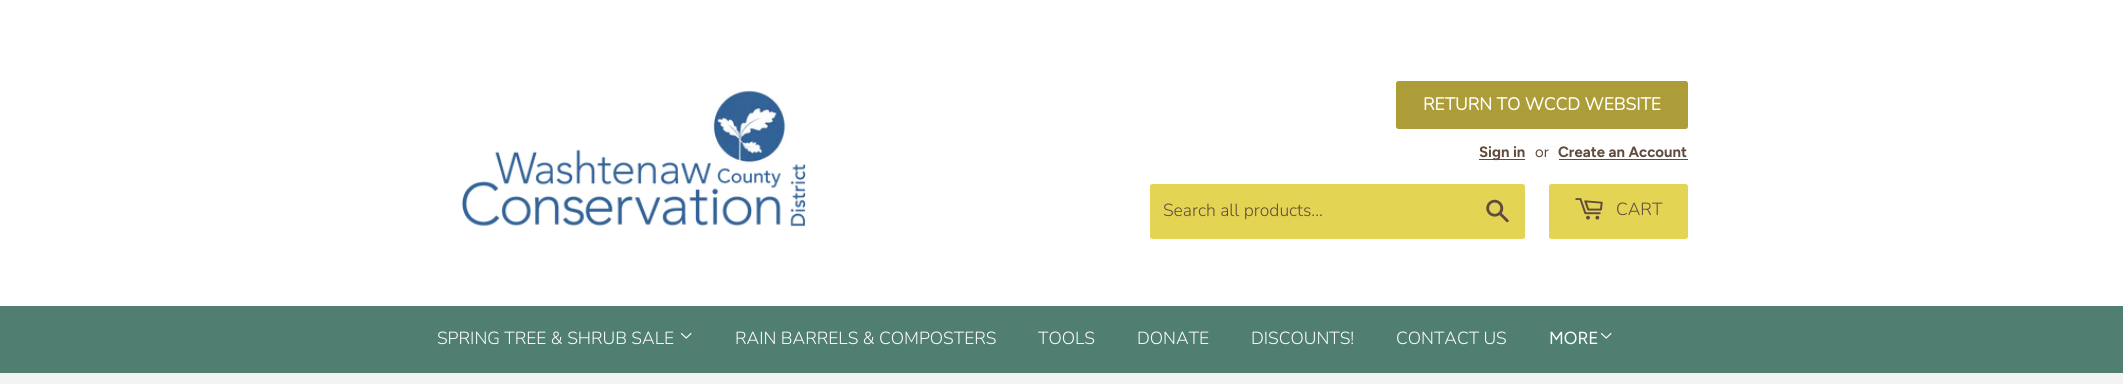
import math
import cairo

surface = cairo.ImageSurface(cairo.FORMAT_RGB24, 2123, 384)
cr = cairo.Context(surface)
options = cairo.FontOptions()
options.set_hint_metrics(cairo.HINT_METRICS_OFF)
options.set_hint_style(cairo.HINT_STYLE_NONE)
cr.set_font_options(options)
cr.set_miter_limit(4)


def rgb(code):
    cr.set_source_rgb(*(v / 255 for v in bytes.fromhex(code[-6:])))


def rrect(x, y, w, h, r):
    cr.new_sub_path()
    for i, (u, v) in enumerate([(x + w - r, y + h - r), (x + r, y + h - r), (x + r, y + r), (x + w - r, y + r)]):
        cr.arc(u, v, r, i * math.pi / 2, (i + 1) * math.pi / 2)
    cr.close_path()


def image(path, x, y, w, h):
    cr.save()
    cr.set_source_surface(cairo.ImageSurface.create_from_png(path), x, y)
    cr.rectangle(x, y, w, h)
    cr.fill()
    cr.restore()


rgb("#f3f3f3")
cr.paint()
rgb("#ffffff")
cr.rectangle(0, 0, 2123, 306)
cr.fill()
image("img/1.png", 461, 90, 345, 137)
rgb("#ad9d38")
rrect(1396, 81, 292, 48, 2.5)
cr.fill()
rgb("#604b3c")
cr.rectangle(1479, 159, 46, 1)
cr.fill()
cr.rectangle(1559, 159, 129, 1)
cr.fill()
rgb("#e3d454")
rrect(1150, 184, 375, 55, 2.5)
cr.fill()
image("img/2.png", 1486, 199, 23, 24)
rrect(1549, 184, 139, 55, 2.5)
cr.fill()
image("img/3.png", 1575, 198, 28, 22)
rgb("#507f71")
cr.rectangle(0, 306, 2123, 67)
cr.fill()
image("img/4.png", 680, 332, 12, 7)
image("img/4.png", 1600, 332, 12, 7)
cr.select_font_face("Nunito", cairo.FONT_SLANT_NORMAL, cairo.FONT_WEIGHT_BOLD)
cr.set_font_size(17.5)
rgb("#ffffff")
cr.move_to(1423, 110)
cr.show_text("RETURN TO WCCD WEBSITE")
cr.select_font_face("Figtree", cairo.FONT_SLANT_NORMAL, cairo.FONT_WEIGHT_BOLD)
cr.set_font_size(14.9)
rgb("#604b3c")
cr.move_to(1479, 157)
cr.show_text("Sign in")
cr.select_font_face("Figtree")
cr.move_to(1535, 157)
cr.show_text("or")
cr.select_font_face("Figtree", cairo.FONT_SLANT_NORMAL, cairo.FONT_WEIGHT_BOLD)
cr.move_to(1558, 157)
cr.show_text("Create an Account")
cr.select_font_face("Nunito Light")
cr.set_font_size(17.5)
cr.move_to(1163, 216)
cr.show_text("Search all products...")
cr.move_to(1616, 215)
cr.show_text("CART")
rgb("#ffffff")
for x, y, s in [
    (437, 344, "SPRING TREE & SHRUB SALE"),
    (735, 344, "RAIN BARRELS & COMPOSTERS"),
    (1038, 344, "TOOLS"),
    (1137, 344, "DONATE"),
    (1251, 344, "DISCOUNTS!"),
    (1396, 344, "CONTACT US"),
]:
    cr.move_to(x, y)
    cr.show_text(s)
cr.select_font_face("Figtree")
cr.move_to(1549, 344)
cr.show_text("MORE")
surface.write_to_png("page.png")
